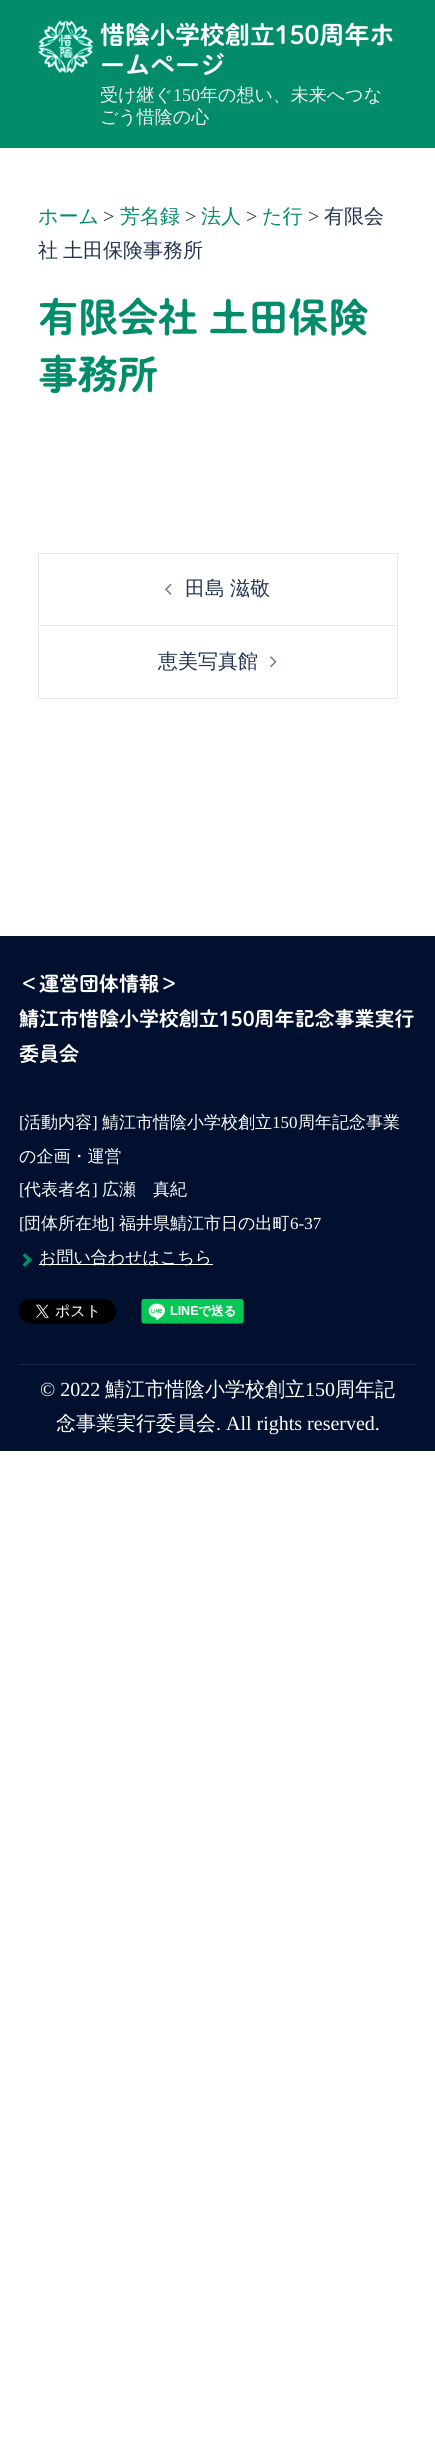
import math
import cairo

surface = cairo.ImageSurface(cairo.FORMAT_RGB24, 435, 2449)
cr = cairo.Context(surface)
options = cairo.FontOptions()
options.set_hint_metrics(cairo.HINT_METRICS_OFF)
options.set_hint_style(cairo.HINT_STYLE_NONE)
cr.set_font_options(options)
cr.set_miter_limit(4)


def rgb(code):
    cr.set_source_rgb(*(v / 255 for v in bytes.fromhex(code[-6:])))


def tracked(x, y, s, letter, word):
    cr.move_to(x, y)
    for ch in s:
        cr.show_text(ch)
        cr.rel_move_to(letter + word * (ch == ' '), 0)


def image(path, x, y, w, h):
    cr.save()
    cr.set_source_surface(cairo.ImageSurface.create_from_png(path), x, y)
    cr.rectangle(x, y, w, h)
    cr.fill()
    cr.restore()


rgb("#ffffff")
cr.paint()
rgb("#028c6a")
cr.rectangle(0, 0, 435, 148)
cr.fill()
image("img/1.png", 38, 20, 56, 54)
cr.rectangle(38.5, 553.5, 359, 145)
rgb("#e6e7ea")
cr.set_line_width(1)
cr.stroke()
cr.rectangle(39, 625, 357, 1)
cr.fill()
image("img/2.png", 165, 584, 7, 11)
image("img/3.png", 270, 656, 7, 12)
rgb("#00102e")
cr.rectangle(0, 936, 435, 515)
cr.fill()
rgb("#028c6a")
cr.new_path()
cr.move_to(25, 1253)
cr.line_to(32, 1260)
cr.line_to(29.5, 1262.5)
cr.line_to(22.5, 1255.5)
cr.close_path()
cr.fill()
cr.new_path()
cr.move_to(29.5, 1257.5)
cr.line_to(32, 1260)
cr.line_to(25, 1267)
cr.line_to(22.5, 1264.5)
cr.close_path()
cr.fill()
rgb("#ffffff")
cr.rectangle(39, 1264, 174, 1)
cr.fill()
image("img/4.png", 19, 1299, 97, 25)
image("img/5.png", 141, 1298, 103, 26)
rgb("#1a2843")
cr.rectangle(19, 1364, 397, 1)
cr.fill()
cr.select_font_face("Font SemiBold")
cr.set_font_size(25)
rgb("#ffffff")
cr.move_to(100, 44)
cr.show_text("惜陰小学校創立150周年ホ")
cr.move_to(100, 74)
cr.show_text("ームページ")
cr.select_font_face("WenQuanYi Zen Hei Medium")
cr.set_font_size(18)
rgb("#efefef")
cr.move_to(100, 101)
cr.show_text("受け継ぐ")
cr.select_font_face("Liberation Serif")
cr.move_to(173, 101)
cr.show_text("150")
cr.select_font_face("WenQuanYi Zen Hei Medium")
cr.move_to(200, 101)
cr.show_text("年の想い、未来へつな")
cr.move_to(100, 123)
cr.show_text("ごう惜陰の心")
cr.set_font_size(20)
rgb("#028c6a")
cr.move_to(38, 223)
cr.show_text("ホーム")
cr.select_font_face("Liberation Serif")
rgb("#233452")
cr.move_to(103, 223)
cr.show_text(">")
cr.select_font_face("WenQuanYi Zen Hei Medium")
rgb("#028c6a")
cr.move_to(120, 223)
cr.show_text("芳名録")
cr.select_font_face("Liberation Serif")
rgb("#233452")
cr.move_to(185, 223)
cr.show_text(">")
cr.select_font_face("WenQuanYi Zen Hei Medium")
rgb("#028c6a")
cr.move_to(201, 223)
cr.show_text("法人")
cr.select_font_face("Liberation Serif")
rgb("#233452")
cr.move_to(246, 223)
cr.show_text(">")
cr.select_font_face("WenQuanYi Zen Hei Medium")
rgb("#028c6a")
cr.move_to(262, 223)
cr.show_text("た行")
cr.select_font_face("Liberation Serif")
rgb("#233452")
cr.move_to(308, 223)
cr.show_text(">")
cr.select_font_face("WenQuanYi Zen Hei Medium")
cr.move_to(324, 223)
cr.show_text("有限会")
tracked(38, 257, "社 土田保険事務所", 0, -1)
cr.select_font_face("Font SemiBold")
cr.set_font_size(40)
rgb("#028c6a")
cr.move_to(38, 332)
cr.show_text("有限会社 土田保険")
cr.move_to(38, 389)
cr.show_text("事務所")
cr.select_font_face("WenQuanYi Zen Hei Medium")
cr.set_font_size(20)
rgb("#233452")
tracked(185, 595, "田島 滋敬", 0, -1)
cr.move_to(158, 668)
cr.show_text("恵美写真館")
cr.select_font_face("Font SemiBold")
rgb("#ffffff")
for x, y, s in [
    (19, 991, "＜運営団体情報＞"),
    (19, 1026, "鯖江市惜陰小学校創立150周年記念事業実行"),
    (19, 1061, "委員会"),
]:
    cr.move_to(x, y)
    cr.show_text(s)
cr.select_font_face("Liberation Serif")
cr.set_font_size(17)
cr.move_to(19, 1128)
cr.show_text("[")
cr.select_font_face("WenQuanYi Zen Hei Medium")
cr.move_to(24, 1128)
cr.show_text("活動内容")
cr.select_font_face("Liberation Serif")
cr.move_to(92, 1128)
cr.show_text("]")
cr.select_font_face("WenQuanYi Zen Hei Medium")
cr.move_to(102, 1128)
cr.show_text("鯖江市惜陰小学校創立")
cr.select_font_face("Liberation Serif")
cr.move_to(272, 1128)
cr.show_text("150")
cr.select_font_face("WenQuanYi Zen Hei Medium")
cr.move_to(298, 1128)
cr.show_text("周年記念事業")
cr.move_to(19, 1162)
cr.show_text("の企画・運営")
cr.select_font_face("Liberation Serif")
cr.move_to(19, 1195)
cr.show_text("[")
cr.select_font_face("WenQuanYi Zen Hei Medium")
cr.move_to(24, 1195)
cr.show_text("代表者名")
cr.select_font_face("Liberation Serif")
cr.move_to(92, 1195)
cr.show_text("]")
cr.select_font_face("WenQuanYi Zen Hei Medium")
cr.move_to(102, 1195)
cr.show_text("広瀬　真紀")
cr.select_font_face("Liberation Serif")
cr.move_to(19, 1229)
cr.show_text("[")
cr.select_font_face("WenQuanYi Zen Hei Medium")
cr.move_to(24, 1229)
cr.show_text("団体所在地")
cr.select_font_face("Liberation Serif")
cr.move_to(109, 1229)
cr.show_text("]")
cr.select_font_face("WenQuanYi Zen Hei Medium")
cr.move_to(119, 1229)
cr.show_text("福井県鯖江市日の出町")
cr.select_font_face("Liberation Serif")
cr.move_to(290, 1229)
cr.show_text("6-37")
cr.select_font_face("WenQuanYi Zen Hei Medium")
cr.move_to(39, 1263)
cr.show_text("お問い合わせはこちら")
cr.select_font_face("Liberation Serif")
cr.set_font_size(20)
cr.move_to(40, 1396)
cr.show_text("© 2022")
cr.select_font_face("WenQuanYi Zen Hei Medium")
cr.move_to(105, 1396)
cr.show_text("鯖江市惜陰小学校創立")
cr.select_font_face("Liberation Serif")
cr.move_to(305, 1396)
cr.show_text("150")
cr.select_font_face("WenQuanYi Zen Hei Medium")
cr.move_to(335, 1396)
cr.show_text("周年記")
cr.move_to(56, 1430)
cr.show_text("念事業実行委員会")
cr.select_font_face("Liberation Serif")
cr.move_to(216, 1430)
cr.show_text(". All rights reserved.")
surface.write_to_png("page.png")
